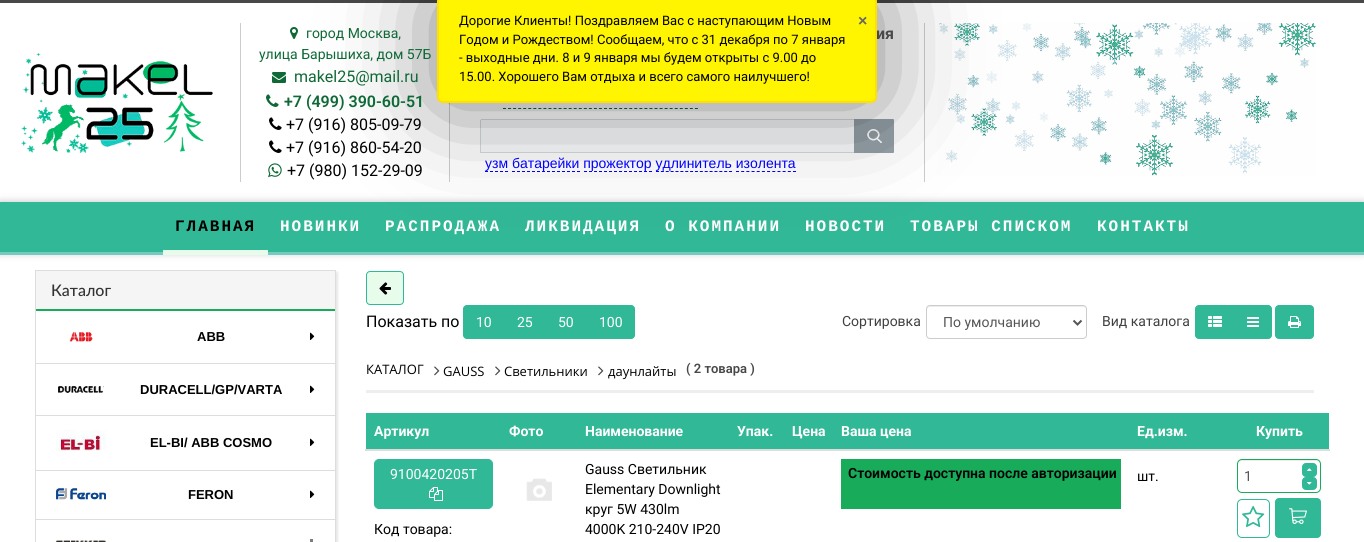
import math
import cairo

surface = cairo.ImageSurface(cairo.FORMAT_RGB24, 1364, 542)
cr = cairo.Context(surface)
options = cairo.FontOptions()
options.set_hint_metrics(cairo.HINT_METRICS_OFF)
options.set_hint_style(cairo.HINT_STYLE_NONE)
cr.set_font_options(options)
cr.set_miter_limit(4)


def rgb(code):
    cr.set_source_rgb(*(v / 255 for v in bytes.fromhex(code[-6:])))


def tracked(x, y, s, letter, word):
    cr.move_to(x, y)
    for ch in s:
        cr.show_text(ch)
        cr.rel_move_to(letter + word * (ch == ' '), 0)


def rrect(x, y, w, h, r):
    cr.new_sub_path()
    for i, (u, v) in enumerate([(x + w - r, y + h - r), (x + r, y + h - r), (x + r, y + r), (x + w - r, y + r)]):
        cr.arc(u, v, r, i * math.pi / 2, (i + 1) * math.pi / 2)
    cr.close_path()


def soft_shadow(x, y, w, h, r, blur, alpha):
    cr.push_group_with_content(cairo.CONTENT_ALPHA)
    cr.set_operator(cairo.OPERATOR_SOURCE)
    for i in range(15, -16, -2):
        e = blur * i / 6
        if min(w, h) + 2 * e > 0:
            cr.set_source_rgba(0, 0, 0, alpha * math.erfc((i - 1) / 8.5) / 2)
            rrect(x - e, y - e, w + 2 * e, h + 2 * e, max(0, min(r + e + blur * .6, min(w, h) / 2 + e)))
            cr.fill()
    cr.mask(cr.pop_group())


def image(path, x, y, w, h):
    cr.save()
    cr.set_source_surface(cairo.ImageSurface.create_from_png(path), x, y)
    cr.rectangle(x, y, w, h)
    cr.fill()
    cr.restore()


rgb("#ffffff")
cr.paint()
rgb("#484848")
cr.rectangle(0, 0, 1364, 3)
cr.fill()
rgb("#cccccc")
cr.rectangle(449, 103, 1, 79)
cr.fill()
image("img/2.png", 290, 27, 8, 12)
cr.new_path()
cr.move_to(503, 108.5)
cr.line_to(698, 108.5)
rgb("#0f6937")
cr.set_line_width(1)
cr.set_dash([3, 2.05])
cr.stroke()
rgb("#f8fafc")
cr.new_path()
cr.move_to(481, 119)
cr.line_to(854, 119)
cr.line_to(854, 153)
cr.line_to(481, 153)
cr.curve_to(480.5, 153, 480, 152.5, 480, 152)
cr.line_to(480, 120)
cr.curve_to(480, 119.5, 480.5, 119, 481, 119)
cr.close_path()
cr.fill()
for x, y, w, h, color in [
    (481, 119, 373, 1, "#d5dadc"),
    (481, 152, 373, 1, "#d5dadc"),
    (480, 120, 1, 33, "#d5dadc"),
]:
    rgb(color)
    cr.rectangle(x, y, w, h)
    cr.fill()
rgb("#95a1a8")
cr.new_path()
cr.move_to(854, 119)
cr.line_to(893, 119)
cr.curve_to(893.5, 119, 894, 119.5, 894, 120)
cr.line_to(894, 152)
cr.curve_to(894, 152.5, 893.5, 153, 893, 153)
cr.line_to(854, 153)
cr.close_path()
cr.fill()
image("img/7.png", 867, 129, 15, 14)
cr.new_path()
cr.move_to(485, 171.5)
cr.line_to(508, 171.5)
rgb("#0000ff")
cr.set_dash([3, 2])
cr.stroke()
cr.new_path()
cr.move_to(512, 171.5)
cr.line_to(580, 171.5)
cr.stroke()
cr.new_path()
cr.move_to(584, 171.5)
cr.line_to(652, 171.5)
cr.stroke()
cr.new_path()
cr.move_to(656, 171.5)
cr.line_to(732, 171.5)
cr.set_dash([3, 1.87])
cr.stroke()
cr.new_path()
cr.move_to(736, 171.5)
cr.line_to(796, 171.5)
cr.set_dash([3, 2.18])
cr.stroke()
image("img/8.png", 937, 23, 379, 153)
rgb("#cccccc")
cr.rectangle(924, 23, 1, 159)
cr.fill()
rgb("#000000")
soft_shadow(0, 201, 1364, 53, 0, 3.5, 0.2)
rgb("#31b896")
cr.rectangle(0, 202, 1364, 50)
cr.fill()
rgb("#74cabf")
cr.rectangle(0, 252, 1364, 3)
cr.fill()
rgb("#000000")
soft_shadow(437, -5, 440, 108, 6, 50, 0.5)
image("img/1.png", 21, 53, 192, 101)
rgb("#cccccc")
cr.rectangle(240, 23, 1, 159)
cr.fill()
image("img/3.png", 272, 72, 14, 11)
image("img/4.png", 266, 94, 13, 13)
image("img/5.png", 269, 117, 13, 13)
image("img/5.png", 269, 140, 13, 13)
image("img/6.png", 268, 163, 14, 15)
rgb("#e8fcec")
cr.rectangle(163, 250, 105, 5)
cr.fill()
cr.save()
cr.rectangle(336, 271, 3, 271)
cr.clip()
rgb("#000000")
soft_shadow(37, 272, 301, 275, 0, 1.5, 0.1)
cr.restore()
cr.rectangle(35.5, 270.5, 300, 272)
rgb("#dddddd")
cr.set_dash([])
cr.stroke()
for x, y, w, h, color in [
    (36, 271, 299, 38, "#f5f5f5"),
    (36, 309, 299, 2, "#18ab5a"),
    (36, 363, 299, 1, "#dddddd"),
]:
    rgb(color)
    cr.rectangle(x, y, w, h)
    cr.fill()
image("img/9.png", 69, 332, 24, 10)
image("img/10.png", 310, 332, 5, 8)
cr.rectangle(36, 415, 299, 1)
cr.fill()
image("img/11.png", 58, 386, 46, 7)
image("img/10.png", 310, 385, 5, 8)
cr.rectangle(36, 470, 299, 1)
cr.fill()
image("img/12.png", 56, 430, 50, 21)
image("img/10.png", 310, 438, 5, 8)
cr.rectangle(36, 519, 299, 1)
cr.fill()
image("img/13.png", 56, 488, 50, 12)
image("img/10.png", 310, 490, 5, 8)
image("img/14.png", 56, 540, 50, 2)
rgb("#7d7d7d")
cr.rectangle(310, 539, 3, 3)
cr.fill()
rgb("#e8fcec")
rrect(366.5, 271.5, 37, 33, 3.5)
cr.fill_preserve()
rgb("#31b896")
cr.stroke()
image("img/15.png", 379, 282, 12, 13)
cr.new_path()
cr.move_to(467, 305.5)
cr.line_to(504.5, 305.5)
cr.line_to(504.5, 338.5)
cr.line_to(467, 338.5)
cr.curve_to(465, 338.5, 463.5, 337, 463.5, 335)
cr.line_to(463.5, 309)
cr.curve_to(463.5, 307, 465, 305.5, 467, 305.5)
cr.close_path()
cr.fill_preserve()
cr.stroke()
cr.rectangle(505, 305, 81, 34)
cr.fill()
cr.new_path()
cr.move_to(586.5, 305.5)
cr.line_to(631, 305.5)
cr.curve_to(633, 305.5, 634.5, 307, 634.5, 309)
cr.line_to(634.5, 335)
cr.curve_to(634.5, 337, 633, 338.5, 631, 338.5)
cr.line_to(586.5, 338.5)
cr.close_path()
cr.fill_preserve()
cr.stroke()
rgb("#ececec")
cr.new_path()
cr.move_to(930, 307)
cr.line_to(1083, 307)
cr.curve_to(1085, 307, 1086, 308, 1086, 310)
cr.curve_to(1086, 308, 1085, 306, 1083, 306)
cr.line_to(929, 306)
cr.curve_to(927, 306, 927, 308, 927, 310)
cr.curve_to(927, 308, 928, 307, 930, 307)
cr.close_path()
cr.fill()
rrect(926.5, 305.5, 160, 33, 3.5)
rgb("#cccccc")
cr.stroke()
cr.new_path()
cr.move_to(1073.5, 320.5)
cr.line_to(1077.5, 324.5)
cr.line_to(1081.5, 320.5)
rgb("#555555")
cr.set_line_width(2)
cr.stroke()
rgb("#31b896")
cr.new_path()
cr.move_to(1199, 305.5)
cr.line_to(1234.5, 305.5)
cr.line_to(1234.5, 338.5)
cr.line_to(1199, 338.5)
cr.curve_to(1197, 338.5, 1195.5, 337, 1195.5, 335)
cr.line_to(1195.5, 309)
cr.curve_to(1195.5, 307, 1197, 305.5, 1199, 305.5)
cr.close_path()
cr.fill_preserve()
cr.set_line_width(1)
cr.stroke()
image("img/16.png", 1208, 316, 14, 11)
cr.new_path()
cr.move_to(1234.5, 305.5)
cr.line_to(1268, 305.5)
cr.curve_to(1270, 305.5, 1271.5, 307, 1271.5, 309)
cr.line_to(1271.5, 335)
cr.curve_to(1271.5, 337, 1270, 338.5, 1268, 338.5)
cr.line_to(1234.5, 338.5)
cr.close_path()
cr.fill_preserve()
cr.stroke()
image("img/17.png", 1247, 317, 12, 10)
rrect(1275.5, 305.5, 38, 33, 3.5)
cr.fill_preserve()
cr.stroke()
image("img/18.png", 1288, 316, 13, 12)
rgb("#eeeeee")
cr.rectangle(366, 390, 948, 3)
cr.fill()
image("img/19.png", 434, 366, 6, 10)
image("img/19.png", 495, 366, 6, 10)
image("img/19.png", 598, 366, 6, 10)
rgb("#31b896")
cr.rectangle(366, 413, 963, 36)
cr.fill()
rgb("#dddddd")
cr.rectangle(365, 449, 965, 2)
cr.fill()
rgb("#31b896")
rrect(374.5, 459.5, 118, 49, 4.5)
cr.fill_preserve()
cr.stroke()
image("img/20.png", 429, 487, 14, 14)
image("img/21.png", 526, 478, 26, 23)
rgb("#18ab5a")
cr.rectangle(841, 459, 280, 50)
cr.fill()
rgb("#ececec")
cr.new_path()
cr.move_to(1242, 461)
cr.line_to(1316, 461)
cr.curve_to(1318, 461, 1320, 463, 1320, 465)
cr.curve_to(1320, 457, 1309, 460, 1304, 460)
cr.line_to(1254, 460)
cr.curve_to(1249, 460, 1238, 457, 1238, 465)
cr.curve_to(1238, 463, 1240, 461, 1242, 461)
cr.close_path()
cr.fill()
rrect(1237.5, 459.5, 83, 33, 4.5)
rgb("#18ab5a")
cr.stroke()
rgb("#31b896")
rrect(1302.5, 463.5, 14, 13, 3.5)
cr.fill_preserve()
cr.stroke()
image("img/22.png", 1307, 468, 5, 3)
rrect(1302.5, 477.5, 14, 12, 3.5)
cr.fill_preserve()
cr.stroke()
image("img/23.png", 1307, 482, 5, 3)
rrect(1237.5, 499.5, 32, 38, 4.5)
cr.stroke()
image("img/24.png", 1242, 505, 23, 23)
rrect(1275.5, 498.5, 45, 39, 3.5)
cr.fill_preserve()
cr.stroke()
image("img/25.png", 1289, 508, 18, 16)
cr.select_font_face("Roboto")
cr.set_font_size(14)
rgb("#0f6937")
cr.move_to(306, 38)
cr.show_text("город Москва,")
cr.move_to(259, 59)
cr.show_text("улица Барышиха, дом 57Б")
cr.set_font_size(16)
cr.move_to(294, 82)
cr.show_text("makel25@mail.ru")
cr.select_font_face("Roboto SemiBold")
cr.move_to(284, 107)
cr.show_text("+7 (499) 390-60-51")
cr.select_font_face("Roboto")
rgb("#000000")
for x, y, s in [
    (286, 130, "+7 (916) 805-09-79"),
    (286, 153, "+7 (916) 860-54-20"),
    (287, 176, "+7 (980) 152-29-09"),
]:
    cr.move_to(x, y)
    cr.show_text(s)
cr.select_font_face("Roboto", cairo.FONT_SLANT_NORMAL, cairo.FONT_WEIGHT_BOLD)
rgb("#484848")
cr.move_to(876, 39)
cr.show_text("ия")
rgb("#fff500")
rrect(438, -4, 438, 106, 5)
cr.fill_preserve()
rgb("#ffe000")
cr.set_line_width(2)
cr.stroke()
cr.select_font_face("Liberation Sans", cairo.FONT_SLANT_NORMAL, cairo.FONT_WEIGHT_BOLD)
rgb("#666666")
cr.move_to(858, 26)
cr.show_text("×")
cr.select_font_face("Roboto")
cr.set_font_size(13)
rgb("#000000")
for x, y, s in [
    (459, 81, "15.00. Хорошего Вам отдыха и всего самого наилучшего!"),
    (459, 62, "- выходные дни. 8 и 9 января мы будем открыты с 9.00 до"),
    (459, 44, "Годом и Рождеством! Сообщаем, что с 31 декабря по 7 января"),
    (459, 25, "Дорогие Клиенты! Поздравляем Вас с наступающим Новым"),
]:
    cr.move_to(x, y)
    cr.show_text(s)
cr.select_font_face("Liberation Sans")
cr.set_font_size(14)
rgb("#0000ff")
cr.move_to(485, 168)
cr.show_text("узм батарейки прожектор удлинитель изолента")
cr.select_font_face("Liberation Mono", cairo.FONT_SLANT_NORMAL, cairo.FONT_WEIGHT_BOLD)
cr.set_font_size(16)
rgb("#000000")
tracked(175, 231, "ГЛАВНАЯ", 2, 0)
rgb("#ffffff")
for x, y, s in [
    (280, 231, "НОВИНКИ"),
    (385, 231, "РАСПРОДАЖА"),
    (525, 231, "ЛИКВИДАЦИЯ"),
    (665, 231, "О КОМПАНИИ"),
    (805, 231, "НОВОСТИ"),
    (910, 231, "ТОВАРЫ СПИСКОМ"),
    (1097, 231, "КОНТАКТЫ"),
]:
    tracked(x, y, s, 2, 0)
cr.select_font_face("Lato Medium")
rgb("#333333")
cr.move_to(51, 296)
cr.show_text("Каталог")
cr.select_font_face("Liberation Sans", cairo.FONT_SLANT_NORMAL, cairo.FONT_WEIGHT_BOLD)
cr.set_font_size(13)
rgb("#000000")
for x, y, s in [
    (197, 341, "ABB"),
    (140, 394, "DURAСELL/GP/VARTA"),
    (150, 447, "EL-BI/ ABB COSMO"),
    (188, 499, "FERON"),
]:
    cr.move_to(x, y)
    cr.show_text(s)
cr.select_font_face("Roboto")
cr.set_font_size(16)
cr.move_to(366, 327)
cr.show_text("Показать по")
cr.set_font_size(14)
rgb("#ffffff")
for x, y, s in [
    (476, 327, "10"),
    (517, 327, "25"),
    (558, 327, "50"),
    (599, 327, "100"),
]:
    cr.move_to(x, y)
    cr.show_text(s)
rgb("#404040")
cr.move_to(842, 326)
cr.show_text("Сортировка")
rgb("#555555")
cr.move_to(943, 327)
cr.show_text("По умолчанию")
rgb("#404040")
cr.move_to(1102, 326)
cr.show_text("Bид каталога")
cr.select_font_face("Open Sans")
cr.set_font_size(13)
rgb("#000000")
for x, y, s in [
    (366, 374, "КАТАЛОГ"),
    (443, 376, "GAUSS"),
    (504, 376, "Светильники"),
    (608, 376, "даунлайты"),
]:
    cr.move_to(x, y)
    cr.show_text(s)
cr.select_font_face("Roboto SemiBold")
rgb("#484848")
cr.move_to(686, 373)
cr.show_text("( 2 товара )")
cr.select_font_face("Roboto", cairo.FONT_SLANT_NORMAL, cairo.FONT_WEIGHT_BOLD)
cr.set_font_size(14)
rgb("#ffffff")
for x, y, s in [
    (374, 436, "Артикул"),
    (509, 436, "Фото"),
    (585, 436, "Наименование"),
    (737, 436, "Упак."),
    (792, 436, "Цена"),
    (841, 436, "Ваша цена"),
    (1137, 436, "Ед.изм."),
    (1256, 436, "Купить"),
]:
    cr.move_to(x, y)
    cr.show_text(s)
cr.select_font_face("Roboto")
cr.move_to(390, 479)
cr.show_text("9100420205T")
rgb("#000000")
for x, y, s in [
    (374, 534, "Код товара:"),
    (585, 474, "Gauss Светильник"),
    (585, 494, "Elementary Downlight"),
    (585, 514, "круг 5W 430lm"),
    (585, 534, "4000K 210-240V IP20"),
]:
    cr.move_to(x, y)
    cr.show_text(s)
cr.select_font_face("Roboto SemiBold")
cr.move_to(848, 478)
cr.show_text("Стоимость доступна после авторизации")
cr.select_font_face("Roboto")
cr.move_to(1137, 481)
cr.show_text("шт.")
rgb("#555555")
cr.move_to(1244, 481)
cr.show_text("1")
surface.write_to_png("page.png")
